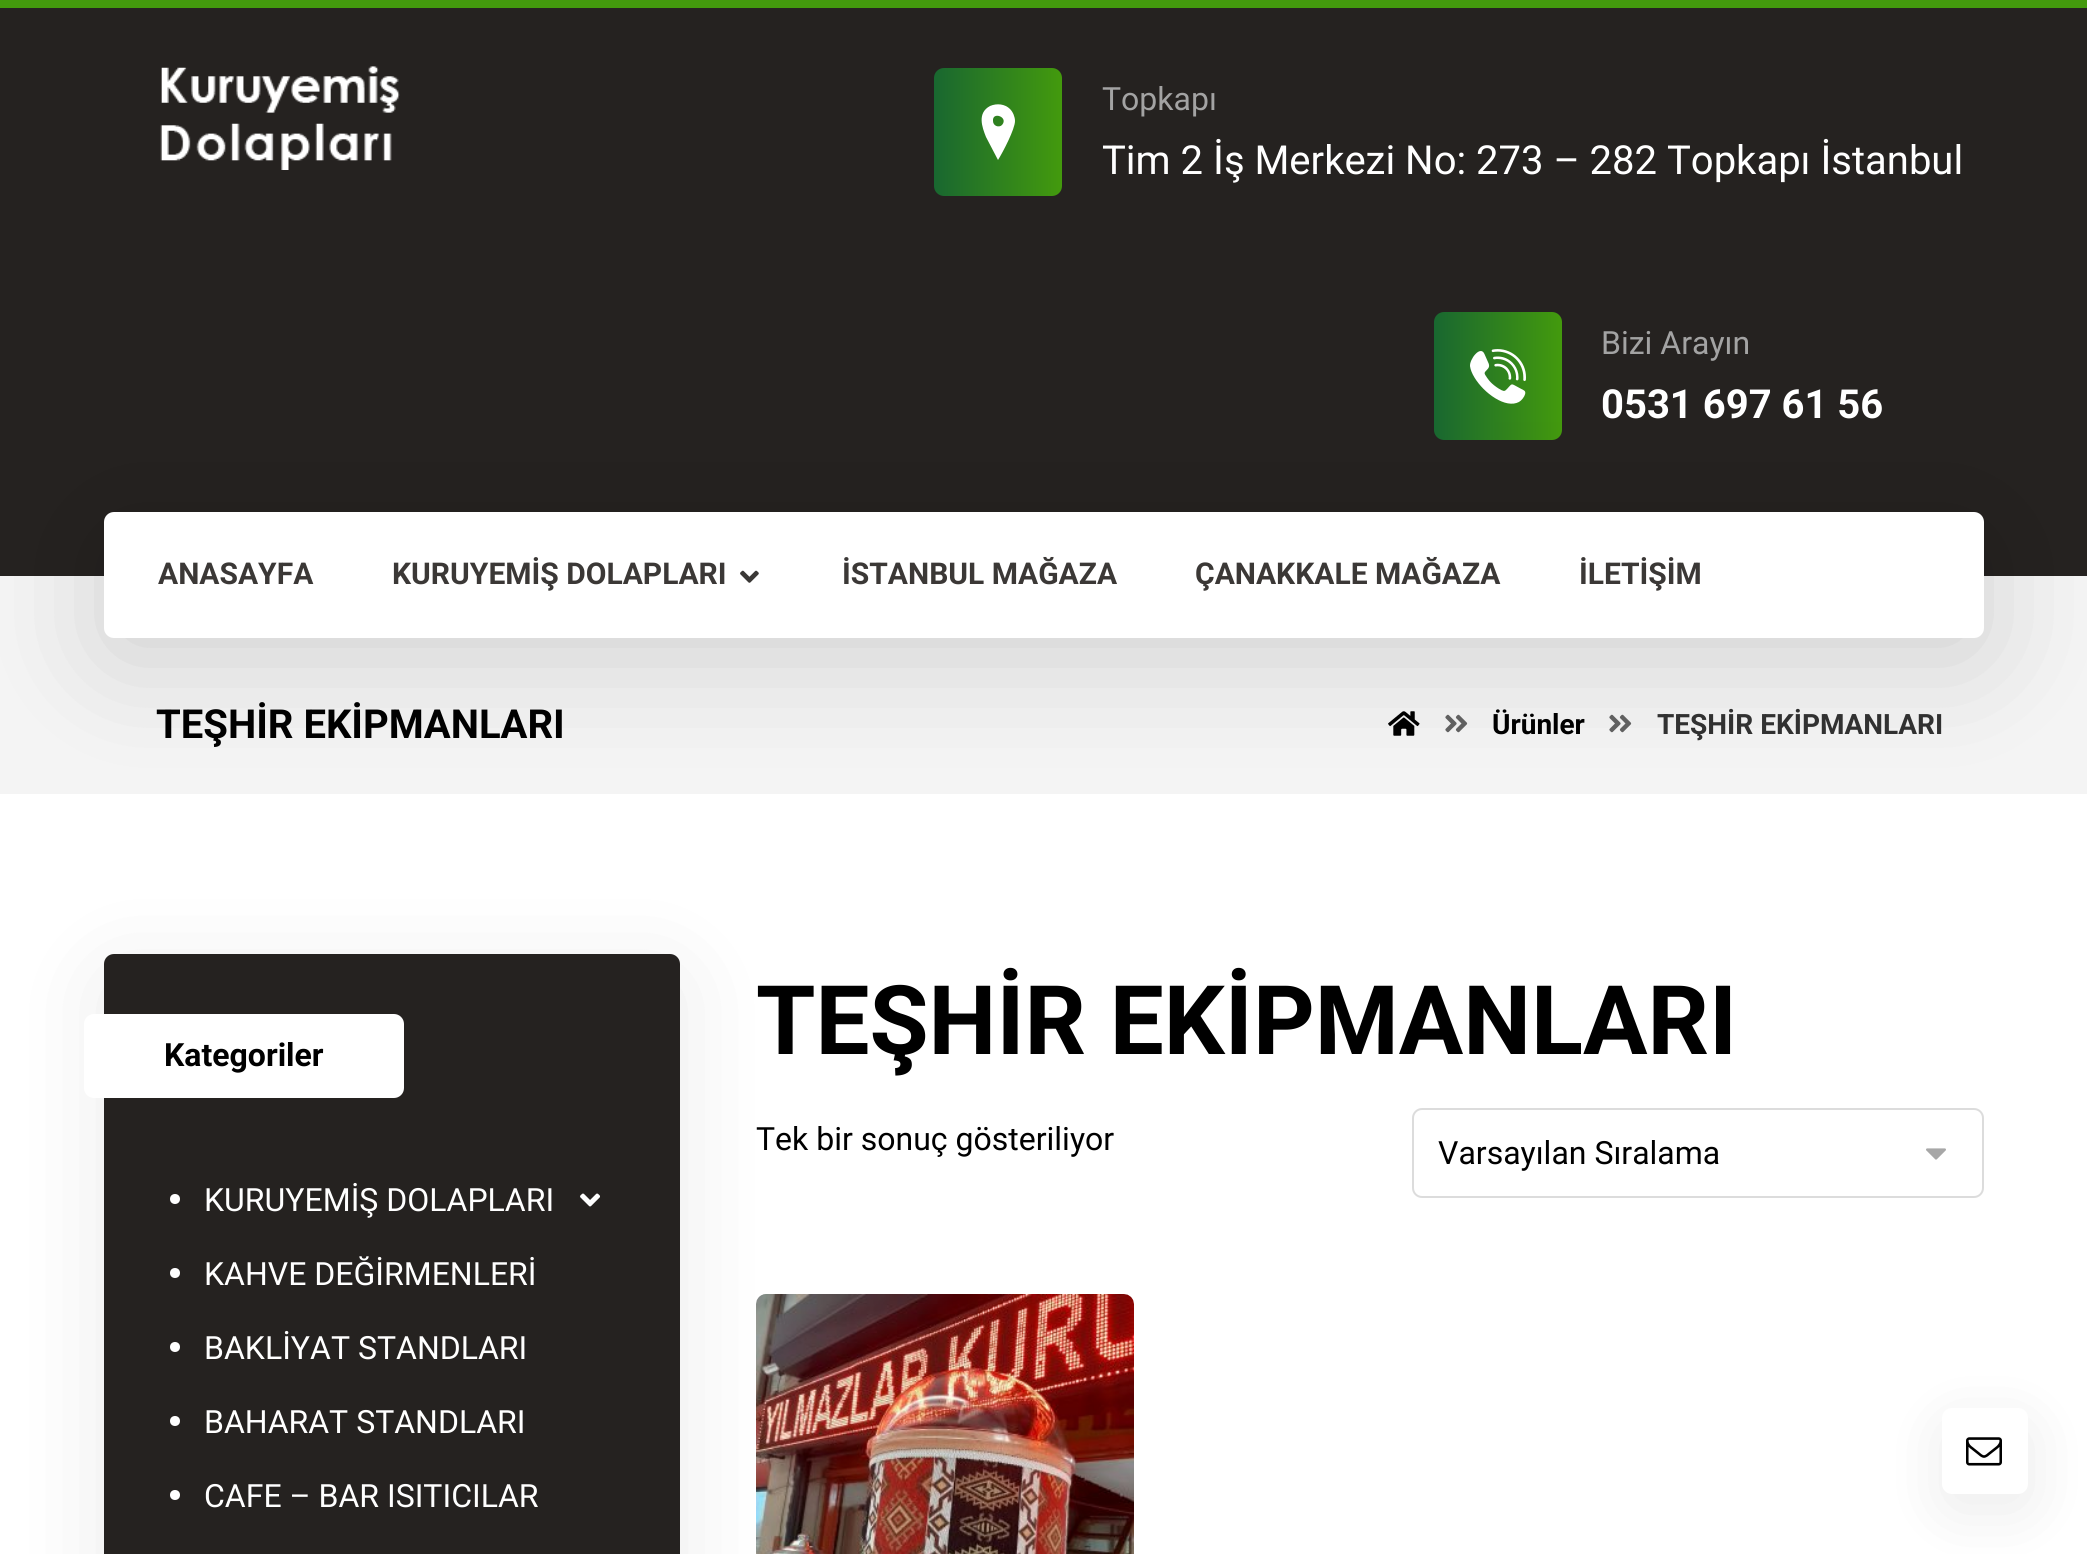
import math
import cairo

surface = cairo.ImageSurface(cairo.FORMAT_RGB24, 2087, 1554)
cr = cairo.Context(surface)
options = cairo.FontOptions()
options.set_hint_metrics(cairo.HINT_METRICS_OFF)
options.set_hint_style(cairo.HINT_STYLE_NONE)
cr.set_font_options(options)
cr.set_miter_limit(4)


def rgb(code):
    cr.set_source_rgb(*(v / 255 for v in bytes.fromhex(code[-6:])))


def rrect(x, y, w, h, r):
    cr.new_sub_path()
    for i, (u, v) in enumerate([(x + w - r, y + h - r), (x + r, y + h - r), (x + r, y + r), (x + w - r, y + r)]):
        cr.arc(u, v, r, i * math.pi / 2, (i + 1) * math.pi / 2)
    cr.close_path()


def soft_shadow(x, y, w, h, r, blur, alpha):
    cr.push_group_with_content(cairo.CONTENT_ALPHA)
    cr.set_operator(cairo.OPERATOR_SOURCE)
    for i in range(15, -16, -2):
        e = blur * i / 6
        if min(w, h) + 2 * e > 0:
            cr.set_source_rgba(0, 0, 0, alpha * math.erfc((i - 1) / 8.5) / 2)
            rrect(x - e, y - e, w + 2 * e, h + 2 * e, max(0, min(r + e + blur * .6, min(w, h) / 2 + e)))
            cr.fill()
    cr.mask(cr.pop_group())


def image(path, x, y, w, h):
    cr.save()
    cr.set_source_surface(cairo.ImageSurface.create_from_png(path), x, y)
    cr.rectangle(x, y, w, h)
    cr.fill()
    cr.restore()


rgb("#ffffff")
cr.paint()
rgb("#252220")
cr.rectangle(0, 8, 2087, 568)
cr.fill()
rgb("#439a0d")
cr.rectangle(0, 0, 2087, 8)
cr.fill()
image("img/1.png", 160, 66, 240, 104)
gradient = cairo.LinearGradient(934, 132, 1062, 132)
gradient.add_color_stop_rgba(0, 0.098, 0.404, 0.188, 1)
gradient.add_color_stop_rgba(1, 0.263, 0.604, 0.051, 1)
cr.set_source(gradient)
rrect(934, 68, 128, 128, 10)
cr.fill()
rgb("#ffffff")
cr.new_path()
cr.move_to(1010, 109)
cr.curve_to(1005, 104, 997, 103, 990, 106)
cr.curve_to(977, 113, 982, 127, 986, 137)
cr.line_to(998, 160)
cr.curve_to(1003, 152, 1015, 129, 1015, 121)
cr.curve_to(1015, 117, 1013, 112, 1010, 109)
cr.close_path()
cr.move_to(1002, 125)
cr.curve_to(999, 128, 993, 126, 993, 121)
cr.curve_to(992, 111, 1009, 117, 1002, 125)
cr.close_path()
cr.fill()
gradient = cairo.LinearGradient(1434, 376, 1562, 376)
gradient.add_color_stop_rgba(0, 0.098, 0.404, 0.188, 1)
gradient.add_color_stop_rgba(1, 0.263, 0.604, 0.051, 1)
cr.set_source(gradient)
rrect(1434, 312, 128, 128, 10)
cr.fill()
image("img/2.png", 1470, 349, 56, 55)
rgb("#f4f4f4")
cr.rectangle(0, 576, 2087, 218)
cr.fill()
image("img/4.png", 1388, 711, 32, 25)
image("img/5.png", 1445, 714, 23, 19)
image("img/5.png", 1609, 714, 23, 19)
rgb("#000000")
soft_shadow(104, 532, 1880, 126, 10, 60, 0.15)
rgb("#ffffff")
rrect(104, 512, 1880, 126, 10)
cr.fill()
image("img/3.png", 740, 570, 19, 13)
rgb("#eeeeee")
rrect(756, 1294, 378, 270, 10)
cr.fill()
image("img/8.png", 756, 1294, 378, 260)
rgb("#000000")
soft_shadow(104, 974, 576, 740, 10, 50, 0.08)
rgb("#252220")
rrect(104, 954, 576, 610, 10)
cr.fill()
rgb("#ffffff")
rrect(84, 1014, 320, 84, 10)
cr.fill()
cr.arc(175, 1199, 5, 0, 2 * math.pi)
cr.fill()
image("img/6.png", 580, 1193, 20, 14)
cr.arc(175, 1273, 5, 0, 2 * math.pi)
cr.fill()
cr.arc(175, 1347, 5, 0, 2 * math.pi)
cr.fill()
cr.arc(175, 1421, 5, 0, 2 * math.pi)
cr.fill()
cr.arc(175, 1495, 5, 0, 2 * math.pi)
cr.fill()
image("img/7.png", 1926, 1148, 20, 12)
rrect(1413, 1109, 570, 88, 9)
rgb("#dcdcdc")
cr.stroke()
rgb("#000000")
soft_shadow(1944, 1424, 86, 86, 10, 32, 0.08)
rgb("#ffffff")
rrect(1942, 1408, 86, 86, 10)
cr.fill()
image("img/9.png", 1966, 1437, 36, 29)
cr.select_font_face("Roboto")
cr.set_font_size(32)
rgb("#a3a3a3")
cr.move_to(1102, 110)
cr.show_text("Topkapı")
cr.set_font_size(40)
rgb("#ffffff")
cr.move_to(1102, 174)
cr.show_text("Tim 2 İş Merkezi No: 273 – 282 Topkapı İstanbul")
cr.set_font_size(32)
rgb("#a3a3a3")
cr.move_to(1601, 354)
cr.show_text("Bizi Arayın")
cr.select_font_face("Roboto", cairo.FONT_SLANT_NORMAL, cairo.FONT_WEIGHT_BOLD)
cr.set_font_size(40)
rgb("#ffffff")
cr.move_to(1601, 418)
cr.show_text("0531 697 61 56")
cr.set_font_size(30)
rgb("#3b3836")
for x, y, s in [
    (158, 584, "ANASAYFA"),
    (392, 584, "KURUYEMİŞ DOLAPLARI"),
    (842, 584, "İSTANBUL MAĞAZA"),
    (1195, 584, "ÇANAKKALE MAĞAZA"),
    (1579, 584, "İLETİŞİM"),
]:
    cr.move_to(x, y)
    cr.show_text(s)
cr.set_font_size(40)
rgb("#000000")
cr.move_to(156, 738)
cr.show_text("TEŞHİR EKİPMANLARI")
cr.set_font_size(28)
cr.move_to(1492, 734)
cr.show_text("Ürünler")
rgb("#313131")
cr.move_to(1657, 734)
cr.show_text("TEŞHİR EKİPMANLARI")
cr.set_font_size(32)
rgb("#000000")
cr.move_to(164, 1066)
cr.show_text("Kategoriler")
cr.select_font_face("Roboto")
rgb("#ffffff")
for x, y, s in [
    (204, 1211, "KURUYEMİŞ DOLAPLARI"),
    (204, 1285, "KAHVE DEĞİRMENLERİ"),
    (204, 1359, "BAKLİYAT STANDLARI"),
    (204, 1433, "BAHARAT STANDLARI"),
    (204, 1507, "CAFE – BAR ISITICILAR"),
]:
    cr.move_to(x, y)
    cr.show_text(s)
cr.select_font_face("Roboto", cairo.FONT_SLANT_NORMAL, cairo.FONT_WEIGHT_BOLD)
cr.set_font_size(96)
rgb("#000000")
cr.move_to(756, 1054)
cr.show_text("TEŞHİR EKİPMANLARI")
cr.select_font_face("Roboto")
cr.set_font_size(32)
cr.move_to(756, 1150)
cr.show_text("Tek bir sonuç gösteriliyor")
cr.move_to(1438, 1164)
cr.show_text("Varsayılan Sıralama")
surface.write_to_png("page.png")
